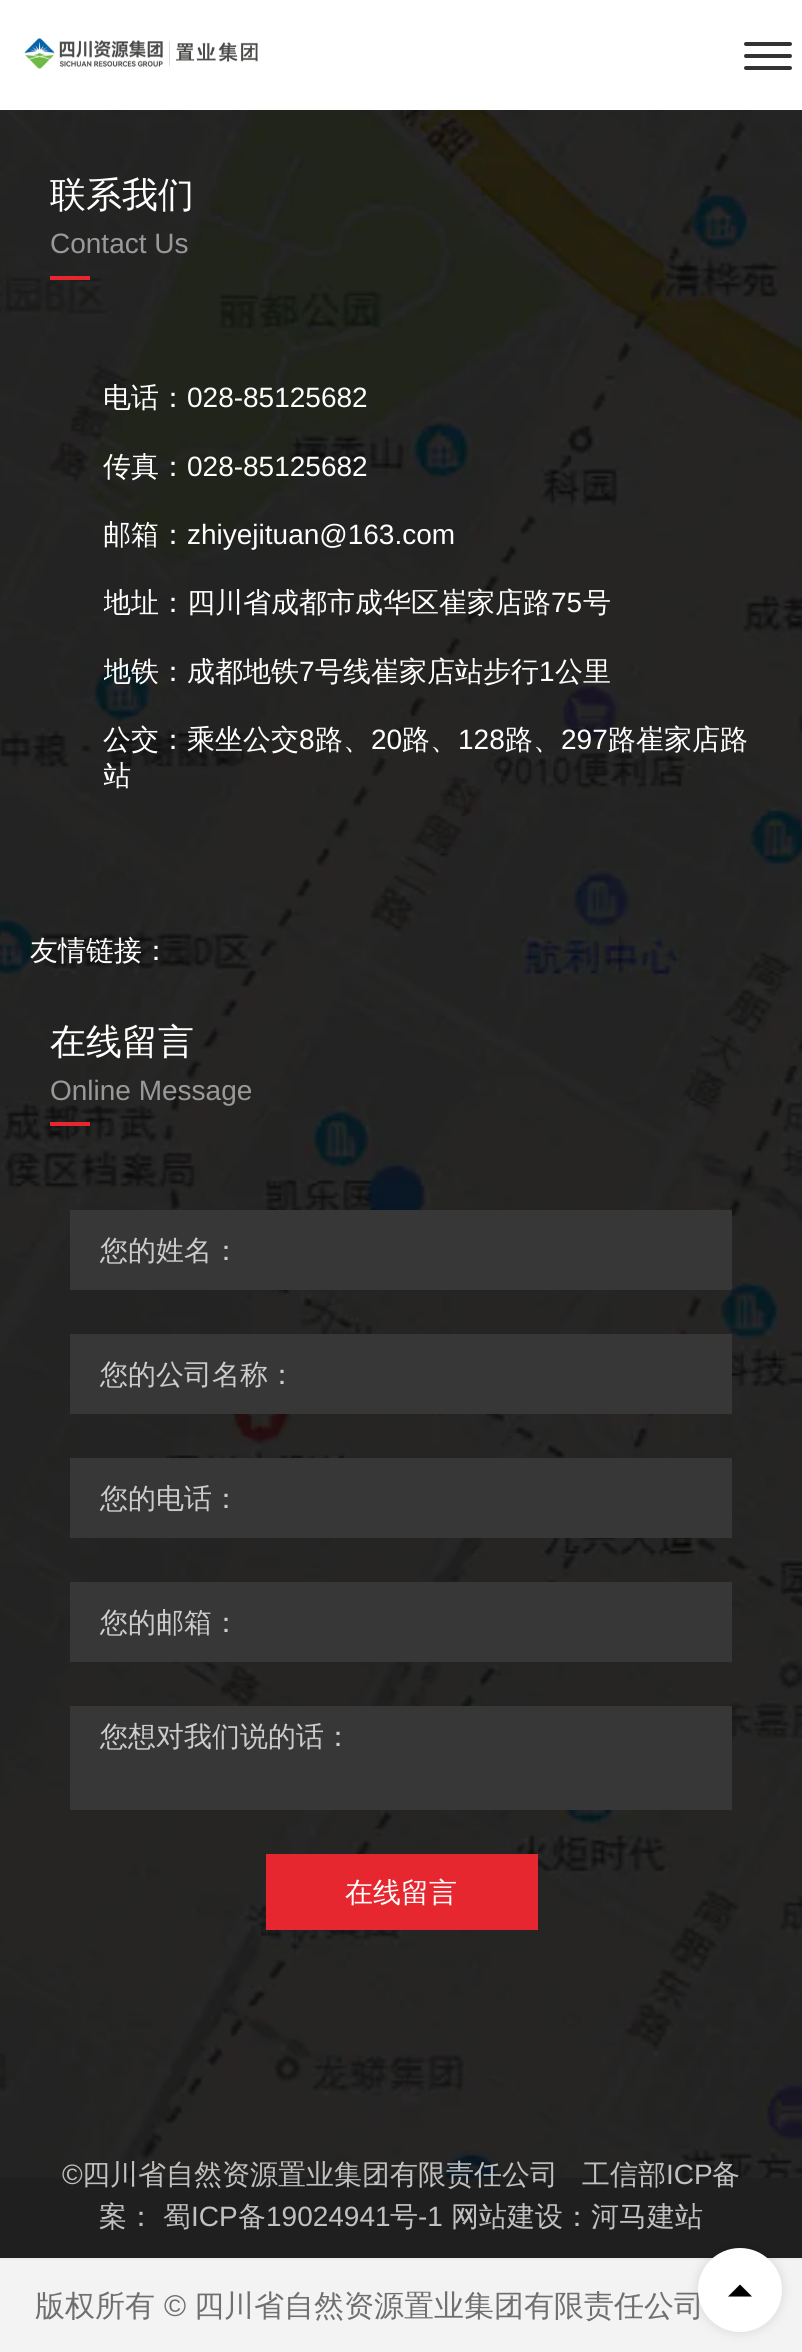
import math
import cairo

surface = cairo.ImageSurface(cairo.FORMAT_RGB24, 802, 2352)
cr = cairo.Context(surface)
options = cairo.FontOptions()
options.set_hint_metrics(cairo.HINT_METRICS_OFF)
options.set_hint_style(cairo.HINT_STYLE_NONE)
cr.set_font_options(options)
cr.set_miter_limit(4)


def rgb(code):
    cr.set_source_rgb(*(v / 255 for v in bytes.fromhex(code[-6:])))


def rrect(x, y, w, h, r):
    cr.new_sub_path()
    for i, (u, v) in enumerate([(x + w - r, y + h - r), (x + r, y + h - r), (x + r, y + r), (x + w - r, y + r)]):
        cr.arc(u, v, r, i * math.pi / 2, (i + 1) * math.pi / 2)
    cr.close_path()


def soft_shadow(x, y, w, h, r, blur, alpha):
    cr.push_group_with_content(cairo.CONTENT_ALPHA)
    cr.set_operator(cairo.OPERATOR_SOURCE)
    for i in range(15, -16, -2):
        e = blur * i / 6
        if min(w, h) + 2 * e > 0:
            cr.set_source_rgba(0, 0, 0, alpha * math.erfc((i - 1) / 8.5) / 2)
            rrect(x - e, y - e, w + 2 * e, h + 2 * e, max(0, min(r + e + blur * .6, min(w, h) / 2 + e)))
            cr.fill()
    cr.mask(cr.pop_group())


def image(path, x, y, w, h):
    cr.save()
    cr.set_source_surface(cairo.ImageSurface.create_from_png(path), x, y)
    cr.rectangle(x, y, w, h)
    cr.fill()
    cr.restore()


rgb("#ffffff")
cr.paint()
image("img/1.png", 24, 38, 234, 31)
rgb("#333333")
rrect(744, 42, 48, 4, 2)
cr.fill()
rrect(744, 54, 48, 4, 2)
cr.fill()
rrect(744, 66, 48, 4, 2)
cr.fill()
image("img/2.png", 0, 110, 802, 2068)
for x, y, w, h, color in [
    (50, 276, 40, 4, "#e7272f"),
    (50, 1122, 40, 4, "#e7272f"),
    (70, 1210, 662, 80, "#373737"),
    (70, 1334, 662, 80, "#373737"),
    (70, 1458, 662, 80, "#373737"),
    (70, 1582, 662, 80, "#373737"),
    (70, 1706, 662, 104, "#373737"),
    (266, 1854, 272, 76, "#e7272f"),
    (0, 2178, 802, 80, "#1f1f1f"),
    (0, 2260, 802, 92, "#f3f3f3"),
    (0, 2258, 802, 2, "#ecebeb"),
]:
    rgb(color)
    cr.rectangle(x, y, w, h)
    cr.fill()
rgb("#000000")
soft_shadow(698, 2248, 84, 84, 42, 6, 0.12)
cr.select_font_face("WenQuanYi Zen Hei Medium")
cr.set_font_size(36)
rgb("#ffffff")
cr.move_to(50, 207)
cr.show_text("联系我们")
cr.select_font_face("Liberation Sans")
cr.set_font_size(28)
rgb("#999999")
cr.move_to(50, 253)
cr.show_text("Contact Us")
cr.select_font_face("WenQuanYi Zen Hei Medium")
rgb("#ffffff")
cr.move_to(103, 407)
cr.show_text("电话：")
cr.select_font_face("Liberation Sans")
cr.move_to(187, 407)
cr.show_text("028-85125682")
cr.select_font_face("WenQuanYi Zen Hei Medium")
cr.move_to(103, 476)
cr.show_text("传真：")
cr.select_font_face("Liberation Sans")
cr.move_to(187, 476)
cr.show_text("028-85125682")
cr.select_font_face("WenQuanYi Zen Hei Medium")
cr.move_to(103, 544)
cr.show_text("邮箱：")
cr.select_font_face("Liberation Sans")
cr.move_to(187, 544)
cr.show_text("zhiyejituan@163.com")
cr.save()
cr.rectangle(104, 584, 658, 36)
cr.clip()
cr.select_font_face("WenQuanYi Zen Hei Medium")
cr.move_to(103, 612)
cr.show_text("地址：四川省成都市成华区崔家店路")
cr.restore()
cr.move_to(551, 612)
cr.show_text("75")
cr.select_font_face("WenQuanYi Zen Hei Medium")
cr.move_to(583, 612)
cr.show_text("号")
cr.save()
cr.rectangle(104, 652, 658, 38)
cr.clip()
cr.move_to(103, 681)
cr.show_text("地铁：成都地铁")
cr.restore()
cr.select_font_face("Liberation Sans")
cr.move_to(299, 681)
cr.show_text("7")
cr.select_font_face("WenQuanYi Zen Hei Medium")
cr.move_to(315, 681)
cr.show_text("号线崔家店站步行")
cr.select_font_face("Liberation Sans")
cr.move_to(539, 681)
cr.show_text("1")
cr.select_font_face("WenQuanYi Zen Hei Medium")
cr.move_to(555, 681)
cr.show_text("公里")
cr.move_to(103, 749)
cr.show_text("公交：乘坐公交")
cr.select_font_face("Liberation Sans")
cr.move_to(299, 749)
cr.show_text("8")
cr.select_font_face("WenQuanYi Zen Hei Medium")
cr.move_to(315, 749)
cr.show_text("路、")
cr.select_font_face("Liberation Sans")
cr.move_to(371, 749)
cr.show_text("20")
cr.select_font_face("WenQuanYi Zen Hei Medium")
cr.move_to(402, 749)
cr.show_text("路、")
cr.select_font_face("Liberation Sans")
cr.move_to(458, 749)
cr.show_text("128")
cr.select_font_face("WenQuanYi Zen Hei Medium")
cr.move_to(505, 749)
cr.show_text("路、")
cr.select_font_face("Liberation Sans")
cr.move_to(561, 749)
cr.show_text("297")
cr.select_font_face("WenQuanYi Zen Hei Medium")
cr.move_to(608, 749)
cr.show_text("路崔家店路")
cr.save()
cr.rectangle(104, 722, 658, 72)
cr.clip()
cr.move_to(103, 785)
cr.show_text("站")
cr.restore()
cr.move_to(30, 960)
cr.show_text("友情链接：")
cr.set_font_size(36)
cr.move_to(50, 1054)
cr.show_text("在线留言")
cr.select_font_face("Liberation Sans")
cr.set_font_size(28)
rgb("#999999")
cr.move_to(50, 1100)
cr.show_text("Online Message")
cr.select_font_face("WenQuanYi Zen Hei Medium")
rgb("#cccccc")
for x, y, s in [
    (100, 1260, "您的姓名："),
    (100, 1384, "您的公司名称："),
    (100, 1508, "您的电话："),
    (100, 1632, "您的邮箱："),
    (100, 1746, "您想对我们说的话："),
]:
    cr.move_to(x, y)
    cr.show_text(s)
rgb("#ffffff")
cr.move_to(345, 1902)
cr.show_text("在线留言")
cr.select_font_face("Liberation Sans")
rgb("#c1c1c1")
cr.move_to(62, 2184)
cr.show_text("©")
cr.select_font_face("WenQuanYi Zen Hei Medium")
cr.move_to(82, 2184)
cr.show_text("四川省自然资源置业集团有限责任公司")
cr.move_to(582, 2184)
cr.show_text("工信部")
cr.select_font_face("Liberation Sans")
cr.move_to(666, 2184)
cr.show_text("ICP")
cr.select_font_face("WenQuanYi Zen Hei Medium")
for x, y, s in [
    (712, 2184, "备"),
    (99, 2226, "案："),
    (163, 2226, "蜀"),
]:
    cr.move_to(x, y)
    cr.show_text(s)
cr.select_font_face("Liberation Sans")
cr.move_to(191, 2226)
cr.show_text("ICP")
cr.select_font_face("WenQuanYi Zen Hei Medium")
cr.move_to(238, 2226)
cr.show_text("备")
cr.select_font_face("Liberation Sans")
cr.move_to(266, 2226)
cr.show_text("19024941")
cr.select_font_face("WenQuanYi Zen Hei Medium")
cr.move_to(390, 2226)
cr.show_text("号")
cr.select_font_face("Liberation Sans")
cr.move_to(418, 2226)
cr.show_text("-1")
cr.select_font_face("WenQuanYi Zen Hei Medium")
cr.move_to(451, 2226)
cr.show_text("网站建设：河马建站")
cr.set_font_size(30)
rgb("#6f6f6f")
cr.move_to(35, 2316)
cr.show_text("版权所有")
cr.select_font_face("Liberation Sans")
cr.move_to(164, 2316)
cr.show_text("©")
cr.select_font_face("WenQuanYi Zen Hei Medium")
cr.move_to(194, 2316)
cr.show_text("四川省自然资源置业集团有限责任公司")
rgb("#ffffff")
cr.new_path()
cr.arc(740, 2290, 42, 0, 2 * math.pi)
cr.fill()
rgb("#000000")
cr.new_path()
cr.move_to(752, 2296.5)
cr.line_to(728, 2296.5)
cr.line_to(740, 2284.5)
cr.close_path()
cr.fill()
surface.write_to_png("page.png")
